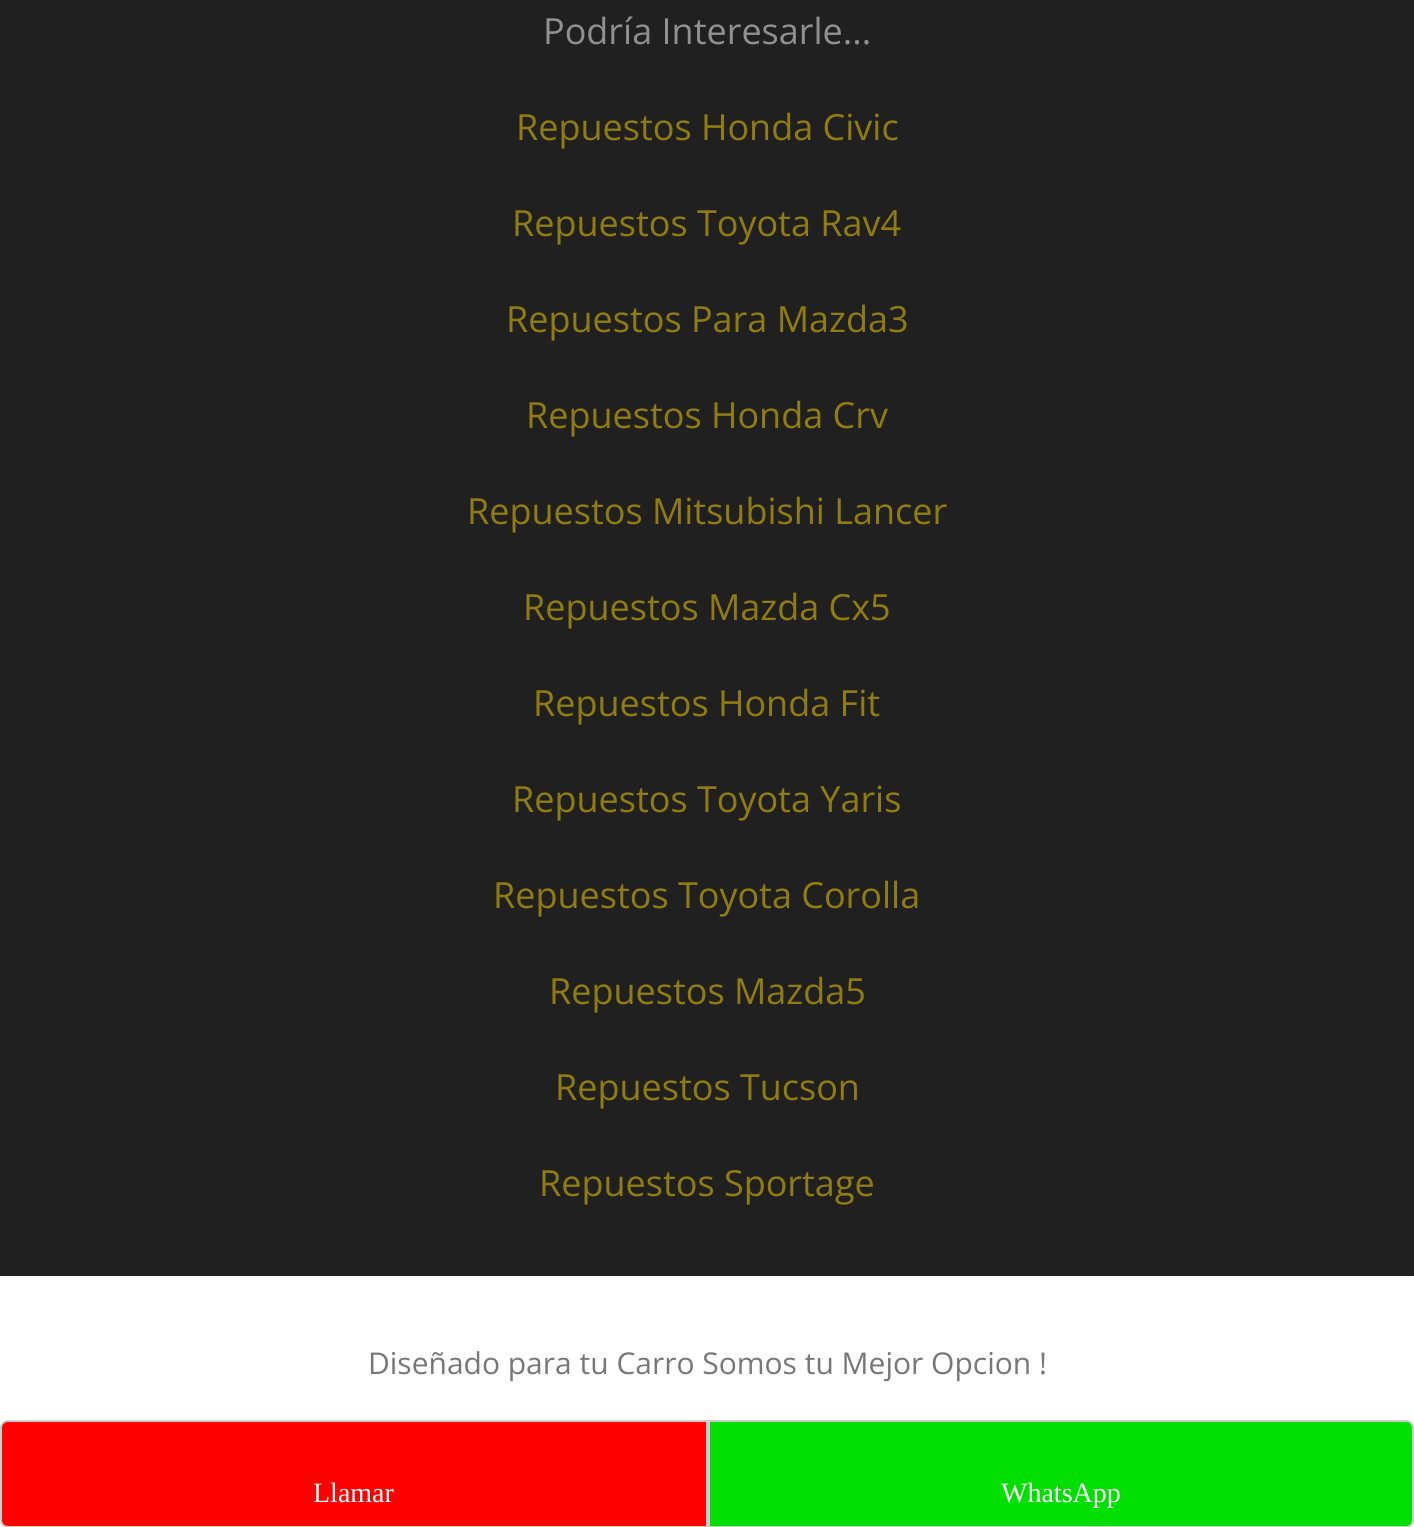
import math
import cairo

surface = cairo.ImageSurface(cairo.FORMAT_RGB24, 1414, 1527)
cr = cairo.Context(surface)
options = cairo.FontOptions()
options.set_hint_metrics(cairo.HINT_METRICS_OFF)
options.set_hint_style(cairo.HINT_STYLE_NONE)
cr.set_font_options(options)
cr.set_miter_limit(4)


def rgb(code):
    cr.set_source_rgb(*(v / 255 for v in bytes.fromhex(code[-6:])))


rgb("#ffffff")
cr.paint()
rgb("#202020")
cr.rectangle(0, 0, 1414, 1276)
cr.fill()
rgb("#ff0000")
cr.new_path()
cr.move_to(8, 1421)
cr.line_to(707, 1421)
cr.line_to(707, 1527)
cr.line_to(8, 1527)
cr.curve_to(4, 1527, 1, 1524, 1, 1520)
cr.line_to(1, 1428)
cr.curve_to(1, 1424, 4, 1421, 8, 1421)
cr.close_path()
cr.fill_preserve()
rgb("#cccccc")
cr.stroke()
rgb("#01df01")
cr.new_path()
cr.move_to(709, 1421)
cr.line_to(1406, 1421)
cr.curve_to(1410, 1421, 1413, 1424, 1413, 1428)
cr.line_to(1413, 1520)
cr.curve_to(1413, 1524, 1410, 1527, 1406, 1527)
cr.line_to(709, 1527)
cr.close_path()
cr.fill_preserve()
rgb("#cccccc")
cr.stroke()
cr.select_font_face("Open Sans")
cr.set_font_size(36)
rgb("#909090")
cr.move_to(543, 44)
cr.show_text("Podría Interesarle...")
rgb("#907c10")
for x, y, s in [
    (516, 140, "Repuestos Honda Civic"),
    (512, 236, "Repuestos Toyota Rav4"),
    (506, 332, "Repuestos Para Mazda3"),
    (526, 428, "Repuestos Honda Crv"),
    (467, 524, "Repuestos Mitsubishi Lancer"),
    (523, 620, "Repuestos Mazda Cx5"),
    (533, 716, "Repuestos Honda Fit"),
    (512, 812, "Repuestos Toyota Yaris"),
    (493, 908, "Repuestos Toyota Corolla"),
    (549, 1004, "Repuestos Mazda5"),
    (555, 1100, "Repuestos Tucson"),
    (539, 1196, "Repuestos Sportage"),
]:
    cr.move_to(x, y)
    cr.show_text(s)
cr.set_font_size(30)
rgb("#777777")
cr.move_to(368, 1374)
cr.show_text("Diseñado para tu Carro Somos tu Mejor Opcion !")
cr.select_font_face("Liberation Serif")
cr.set_font_size(28)
rgb("#ffffff")
cr.move_to(313, 1502)
cr.show_text("Llamar")
cr.move_to(1001, 1502)
cr.show_text("WhatsApp")
surface.write_to_png("page.png")
